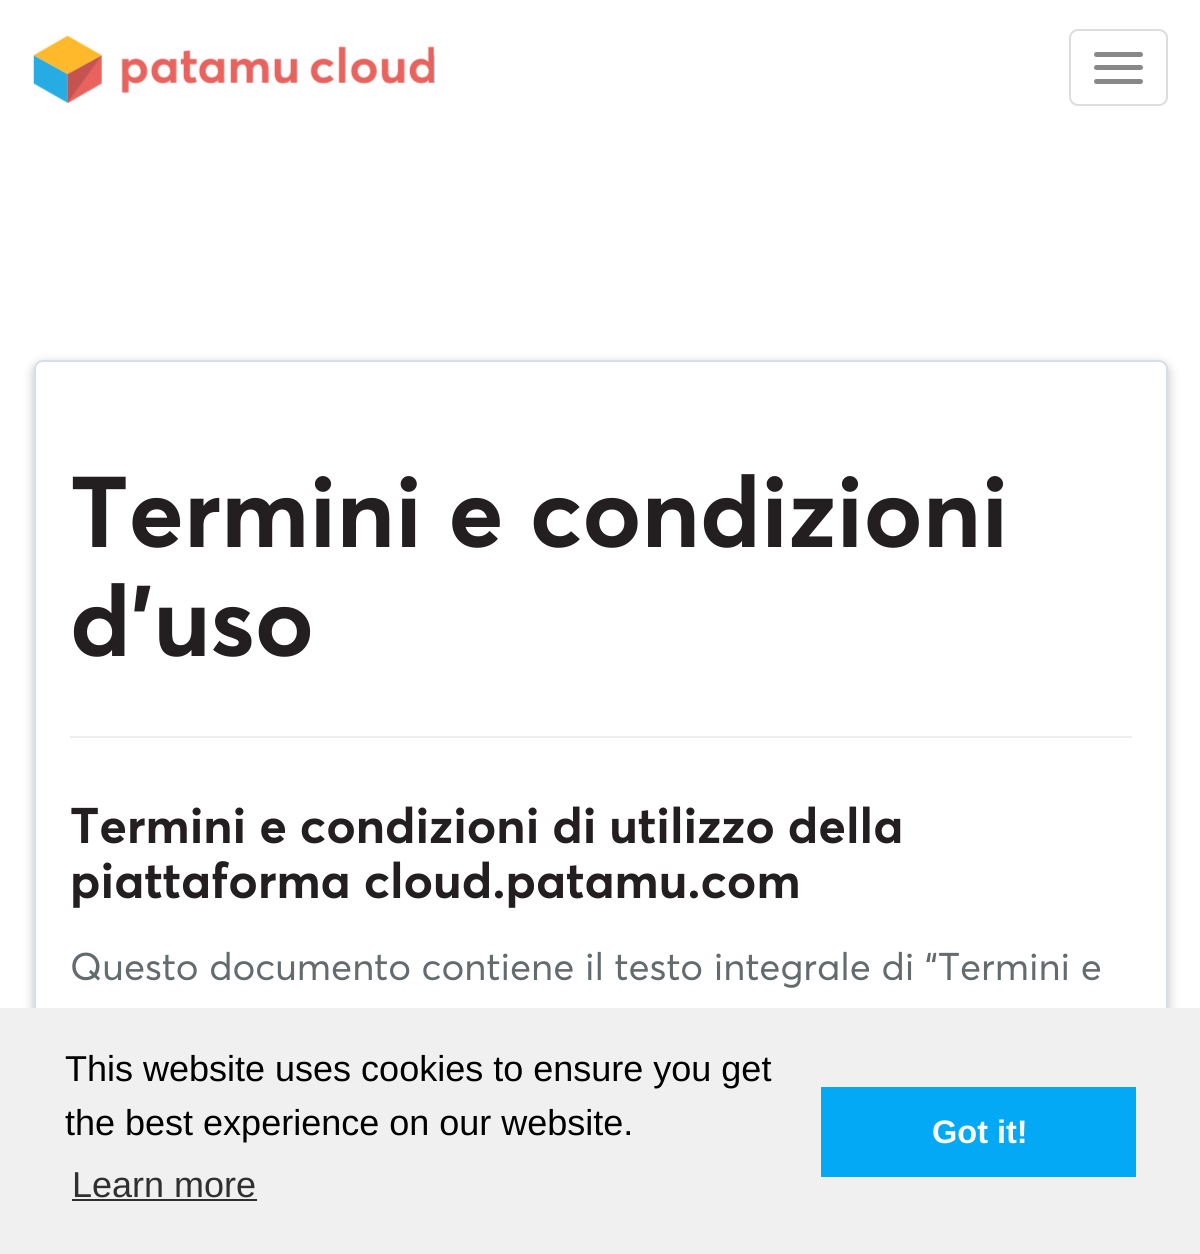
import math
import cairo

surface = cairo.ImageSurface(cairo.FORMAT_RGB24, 1200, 1254)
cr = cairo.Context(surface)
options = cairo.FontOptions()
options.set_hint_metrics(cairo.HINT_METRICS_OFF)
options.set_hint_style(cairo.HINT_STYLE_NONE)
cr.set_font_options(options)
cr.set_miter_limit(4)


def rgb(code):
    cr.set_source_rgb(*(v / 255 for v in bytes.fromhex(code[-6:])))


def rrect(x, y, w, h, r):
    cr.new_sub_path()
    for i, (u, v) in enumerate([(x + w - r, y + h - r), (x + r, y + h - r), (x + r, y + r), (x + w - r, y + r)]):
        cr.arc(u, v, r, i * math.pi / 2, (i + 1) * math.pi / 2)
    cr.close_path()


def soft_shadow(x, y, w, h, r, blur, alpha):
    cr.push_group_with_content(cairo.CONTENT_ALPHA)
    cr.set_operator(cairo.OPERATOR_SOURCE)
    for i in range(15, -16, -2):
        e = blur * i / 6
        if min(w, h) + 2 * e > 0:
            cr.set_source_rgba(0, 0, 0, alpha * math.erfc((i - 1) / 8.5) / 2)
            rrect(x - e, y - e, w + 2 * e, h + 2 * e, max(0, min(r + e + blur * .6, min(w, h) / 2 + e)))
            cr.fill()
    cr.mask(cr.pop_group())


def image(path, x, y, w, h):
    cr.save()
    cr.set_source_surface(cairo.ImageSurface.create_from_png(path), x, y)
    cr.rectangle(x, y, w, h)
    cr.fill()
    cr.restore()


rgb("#ffffff")
cr.paint()
image("img/1.png", 33, 35, 402, 74)
rrect(1070, 30, 97, 75, 8)
rgb("#dddddd")
cr.stroke()
rgb("#888888")
rrect(1094, 52, 49, 5, 2.5)
cr.fill()
rrect(1094, 65, 49, 5, 2.5)
cr.fill()
rrect(1094, 79, 49, 5, 2.5)
cr.fill()
rgb("#000000")
soft_shadow(32, 362, 1138, 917, 11, 4.5, 0.19)
rgb("#ffffff")
rrect(35, 361, 1132, 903, 8)
cr.fill_preserve()
rgb("#d3e0e9")
cr.stroke()
for x, y, w, h, color in [
    (70, 736, 1062, 2, "#eeeeee"),
    (0, 1008, 1200, 246, "#f0f0f0"),
    (72, 1199, 185, 2, "#303030"),
    (821, 1087, 315, 90, "#03a9f4"),
]:
    rgb(color)
    cr.rectangle(x, y, w, h)
    cr.fill()
cr.select_font_face("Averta", cairo.FONT_SLANT_NORMAL, cairo.FONT_WEIGHT_BOLD)
cr.set_font_size(99)
rgb("#231f20")
cr.move_to(70, 547)
cr.show_text("Termini e condizioni")
cr.move_to(70, 656)
cr.show_text("d'uso")
cr.set_font_size(49.5)
cr.move_to(70, 843)
cr.show_text("Termini e condizioni di utilizzo della")
cr.move_to(70, 898)
cr.show_text("piattaforma cloud.patamu.com")
cr.select_font_face("Averta")
cr.set_font_size(38.25)
rgb("#636b6f")
cr.move_to(70, 980)
cr.show_text("Questo documento contiene il testo integrale di “Termini e")
cr.select_font_face("Liberation Sans")
cr.set_font_size(36)
rgb("#000000")
cr.move_to(65, 1081)
cr.show_text("This website uses cookies to ensure you get")
cr.move_to(65, 1135)
cr.show_text("the best experience on our website.")
rgb("#303030")
cr.move_to(72, 1197)
cr.show_text("Learn more")
cr.select_font_face("Liberation Sans", cairo.FONT_SLANT_NORMAL, cairo.FONT_WEIGHT_BOLD)
cr.set_font_size(32.5)
rgb("#ffffff")
cr.move_to(932, 1143)
cr.show_text("Got it!")
surface.write_to_png("page.png")
